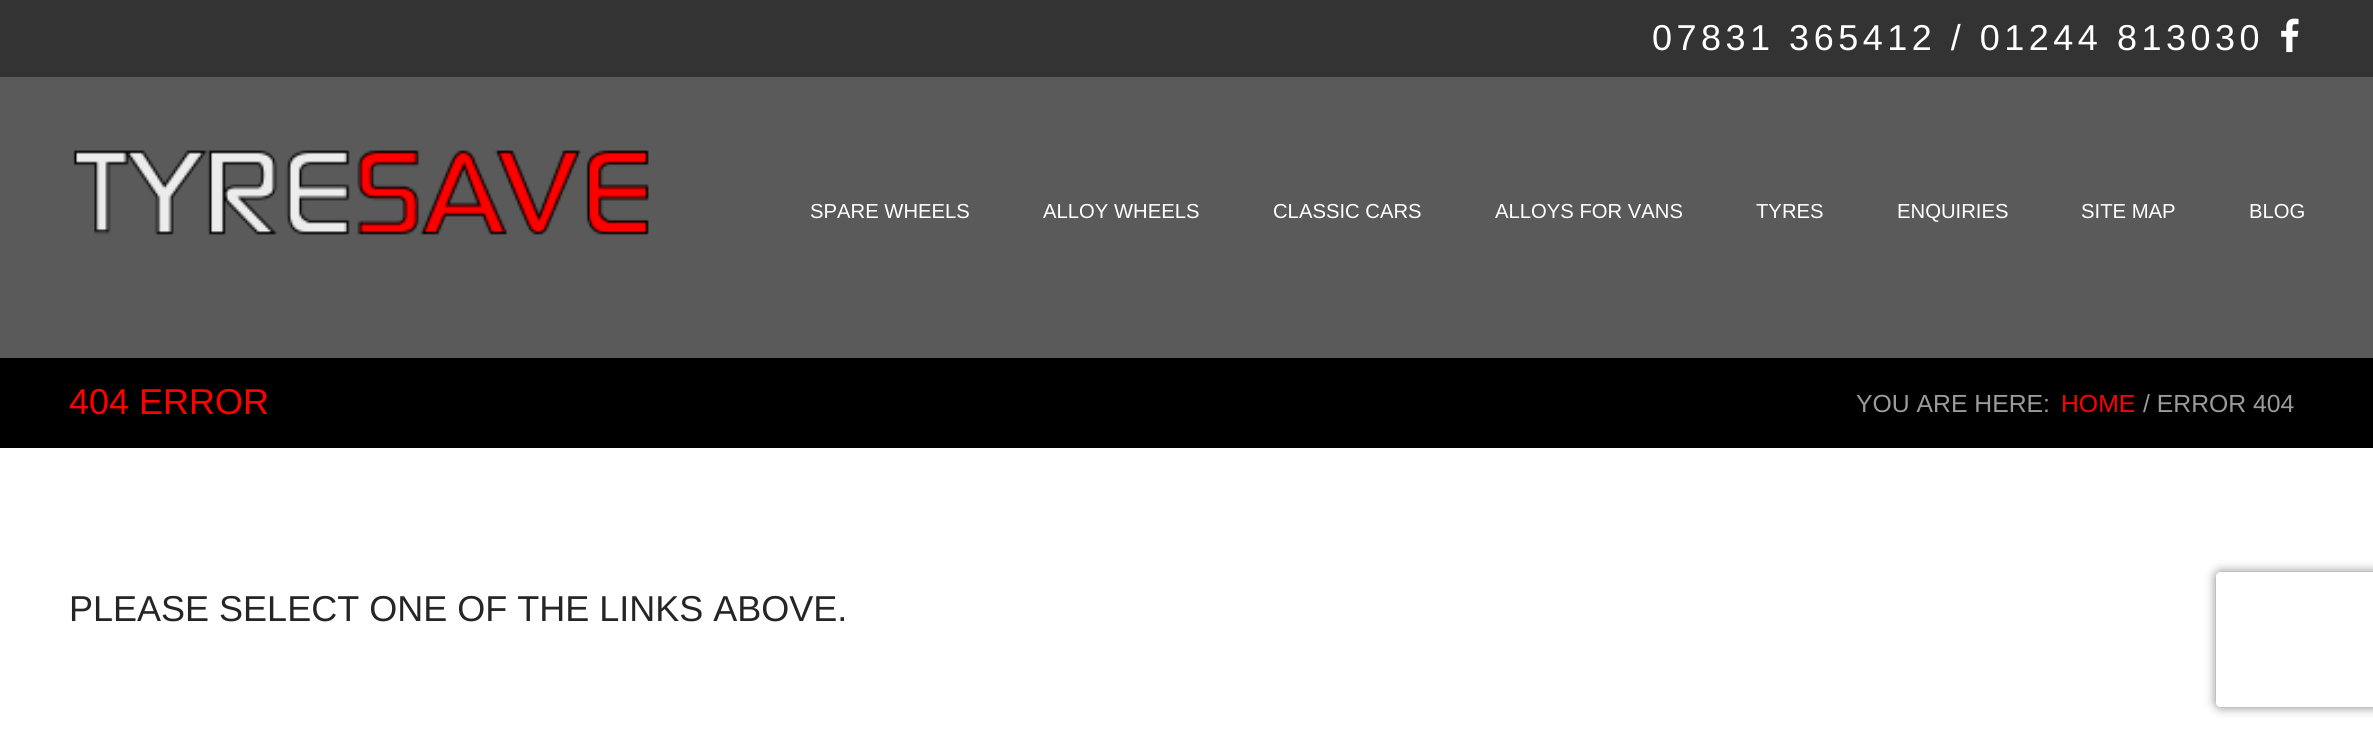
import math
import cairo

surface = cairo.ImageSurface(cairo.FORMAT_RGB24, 2373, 738)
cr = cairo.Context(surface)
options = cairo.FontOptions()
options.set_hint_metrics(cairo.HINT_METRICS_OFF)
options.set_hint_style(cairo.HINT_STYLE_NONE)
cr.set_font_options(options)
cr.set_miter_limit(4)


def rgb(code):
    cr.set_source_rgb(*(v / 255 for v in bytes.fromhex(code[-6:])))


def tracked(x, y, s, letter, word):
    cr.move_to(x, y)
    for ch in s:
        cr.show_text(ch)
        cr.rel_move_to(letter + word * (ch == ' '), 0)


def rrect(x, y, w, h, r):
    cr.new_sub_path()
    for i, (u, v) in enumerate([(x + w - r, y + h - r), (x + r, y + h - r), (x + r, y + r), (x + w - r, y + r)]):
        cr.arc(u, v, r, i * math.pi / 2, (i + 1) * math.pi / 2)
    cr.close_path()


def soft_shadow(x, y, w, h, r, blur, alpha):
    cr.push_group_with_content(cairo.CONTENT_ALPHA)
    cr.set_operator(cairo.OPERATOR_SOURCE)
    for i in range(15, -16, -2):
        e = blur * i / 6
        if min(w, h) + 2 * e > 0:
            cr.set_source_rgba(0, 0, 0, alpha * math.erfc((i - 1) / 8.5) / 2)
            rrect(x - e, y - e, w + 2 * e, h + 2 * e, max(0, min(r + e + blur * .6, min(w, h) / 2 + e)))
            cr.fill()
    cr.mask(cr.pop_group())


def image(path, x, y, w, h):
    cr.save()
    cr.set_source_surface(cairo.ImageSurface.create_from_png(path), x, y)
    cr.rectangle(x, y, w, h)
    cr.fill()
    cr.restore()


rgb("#ffffff")
cr.paint()
rgb("#333333")
cr.rectangle(0, 0, 2373, 77)
cr.fill()
image("img/1.png", 2281, 18, 18, 35)
rgb("#5a5a5a")
cr.rectangle(0, 77, 2373, 281)
cr.fill()
image("img/2.png", 73, 150, 576, 85)
rgb("#000000")
cr.rectangle(0, 358, 2373, 90)
cr.fill()
cr.save()
cr.set_fill_rule(cairo.FILL_RULE_EVEN_ODD)
cr.new_path()
cr.move_to(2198, 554)
cr.line_to(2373, 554)
cr.line_to(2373, 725)
cr.line_to(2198, 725)
cr.close_path()
cr.move_to(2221, 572)
cr.line_to(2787, 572)
cr.curve_to(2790, 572, 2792, 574, 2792, 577)
cr.line_to(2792, 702)
cr.curve_to(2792, 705, 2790, 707, 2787, 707)
cr.line_to(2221, 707)
cr.curve_to(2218, 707, 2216, 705, 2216, 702)
cr.line_to(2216, 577)
cr.curve_to(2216, 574, 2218, 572, 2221, 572)
cr.close_path()
cr.clip()
rgb("#808080")
soft_shadow(2216, 572, 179, 135, 5, 5.5, 1)
cr.restore()
cr.select_font_face("Liberation Sans")
cr.set_font_size(36)
rgb("#ffffff")
tracked(1652, 50, "07831 365412 / 01244 813030", 4.5, 0)
cr.set_font_size(20.25)
for x, y, s in [
    (810, 218, "SPARE WHEELS"),
    (1043, 218, "ALLOY WHEELS"),
    (1273, 218, "CLASSIC CARS"),
    (1495, 218, "ALLOYS FOR VANS"),
    (1756, 218, "TYRES"),
    (1897, 218, "ENQUIRIES"),
    (2081, 218, "SITE MAP"),
    (2249, 218, "BLOG"),
]:
    cr.move_to(x, y)
    cr.show_text(s)
cr.set_font_size(36)
rgb("#ff0000")
cr.move_to(69, 414)
cr.show_text("404 ERROR")
cr.set_font_size(24.75)
rgb("#9b9b9b")
cr.move_to(1856, 412)
cr.show_text("YOU ARE HERE:")
rgb("#ff0000")
cr.move_to(2061, 412)
cr.show_text("HOME")
rgb("#9b9b9b")
cr.move_to(2143, 412)
cr.show_text("/ ERROR 404")
cr.set_font_size(36)
rgb("#252525")
cr.move_to(69, 621)
cr.show_text("PLEASE SELECT ONE OF THE LINKS ABOVE.")
surface.write_to_png("page.png")
